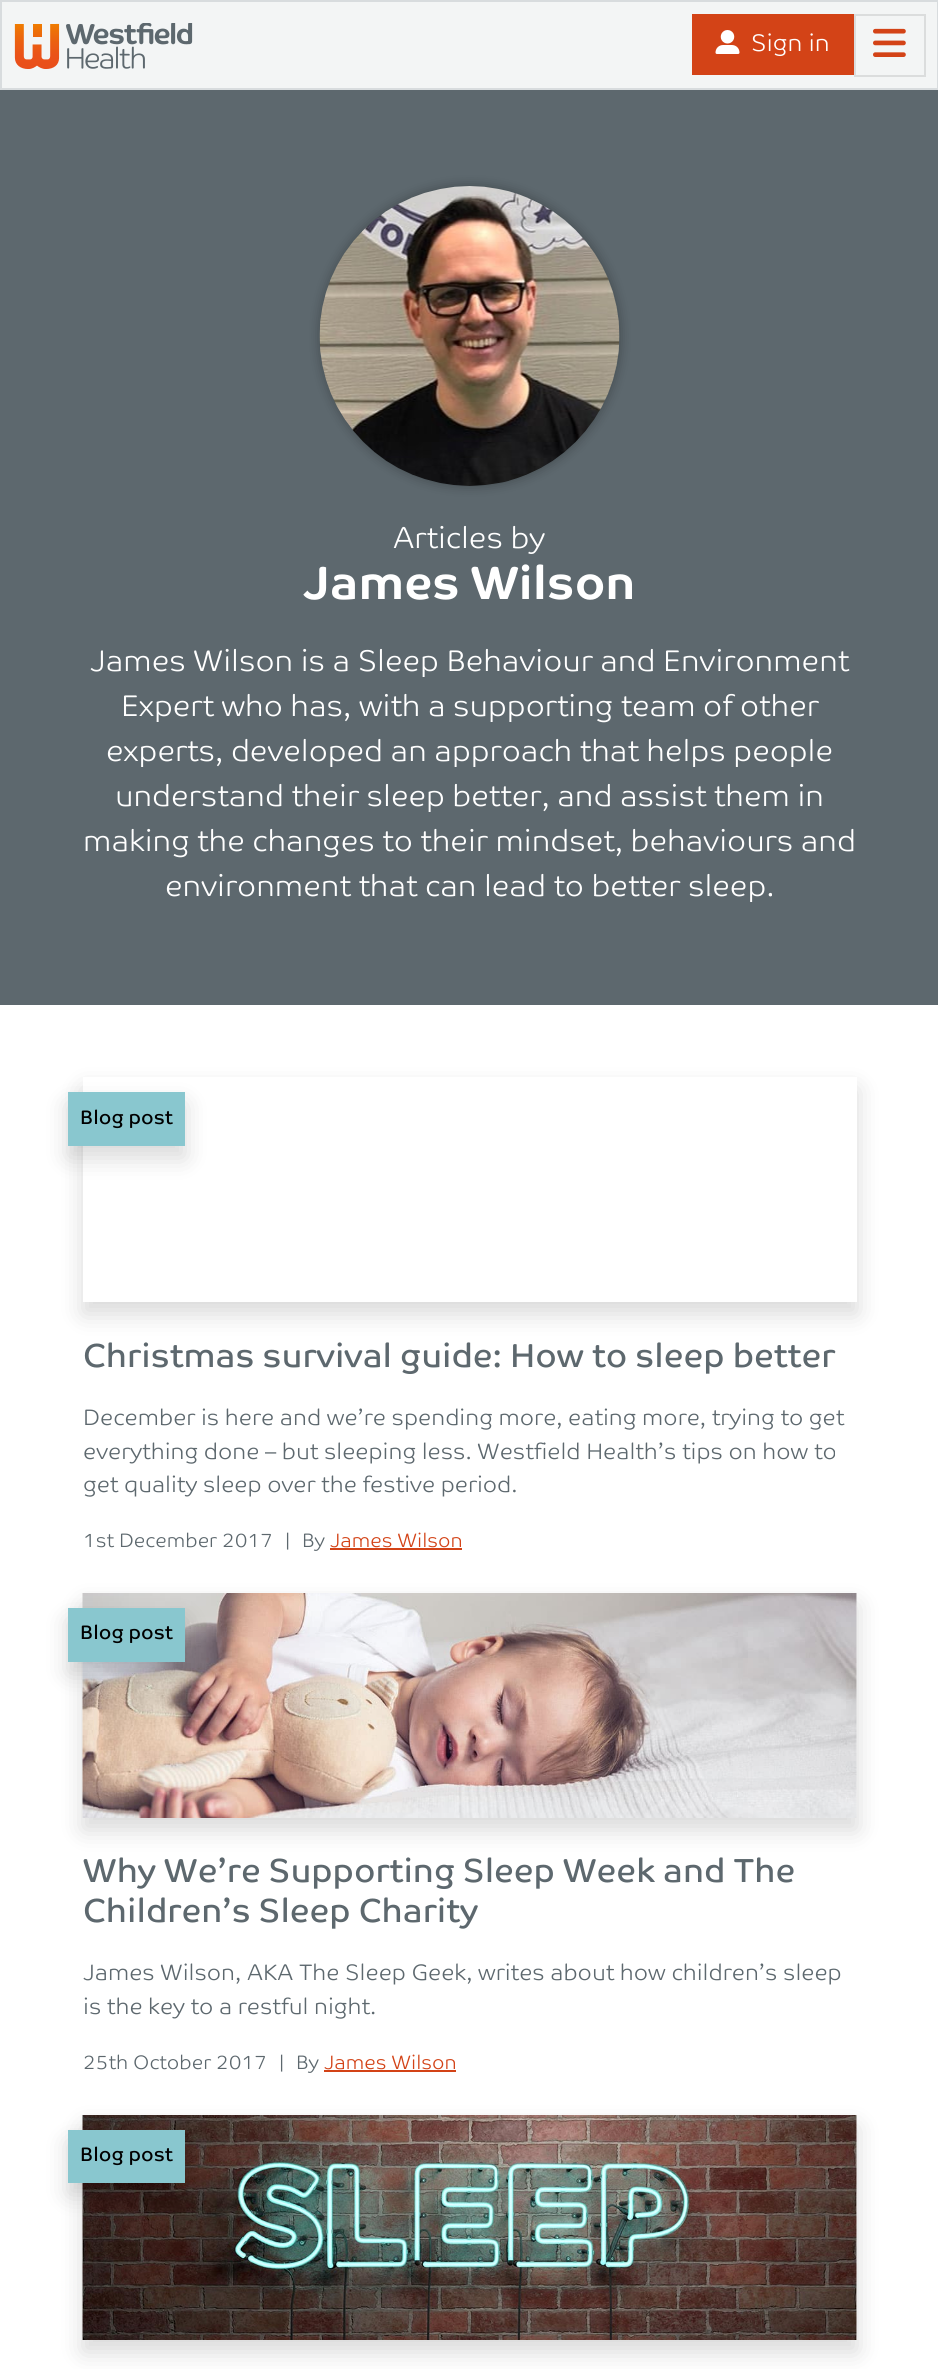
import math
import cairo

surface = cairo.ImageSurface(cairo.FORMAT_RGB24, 938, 2369)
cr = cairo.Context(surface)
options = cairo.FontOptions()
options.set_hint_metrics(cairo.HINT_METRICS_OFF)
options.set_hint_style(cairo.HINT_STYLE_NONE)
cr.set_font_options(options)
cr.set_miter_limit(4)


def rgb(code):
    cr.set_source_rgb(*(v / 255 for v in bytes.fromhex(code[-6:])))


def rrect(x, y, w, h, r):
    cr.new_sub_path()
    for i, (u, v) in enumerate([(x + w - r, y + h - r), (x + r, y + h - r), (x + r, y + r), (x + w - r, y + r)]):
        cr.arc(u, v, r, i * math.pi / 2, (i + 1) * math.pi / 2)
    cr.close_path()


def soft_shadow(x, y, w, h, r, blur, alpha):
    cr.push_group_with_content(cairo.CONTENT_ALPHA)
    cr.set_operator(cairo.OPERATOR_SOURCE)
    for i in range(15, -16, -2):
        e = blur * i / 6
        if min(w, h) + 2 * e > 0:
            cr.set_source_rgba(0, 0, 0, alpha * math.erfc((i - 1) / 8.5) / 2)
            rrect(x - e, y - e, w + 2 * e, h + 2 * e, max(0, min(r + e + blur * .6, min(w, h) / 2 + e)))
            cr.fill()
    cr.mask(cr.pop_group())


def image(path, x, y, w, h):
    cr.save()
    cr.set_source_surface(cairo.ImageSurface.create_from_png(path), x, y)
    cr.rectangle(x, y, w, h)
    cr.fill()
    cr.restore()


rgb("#ffffff")
cr.paint()
rgb("#f3f5f5")
cr.rectangle(1, 1, 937, 88)
cr.fill_preserve()
rgb("#d8dcde")
cr.stroke()
image("img/1.png", 14, 23, 179, 46)
rgb("#d34317")
cr.rectangle(692, 14, 162, 61)
cr.fill()
image("img/2.png", 715, 30, 25, 24)
cr.rectangle(855, 15, 70, 61)
rgb("#dbdddd")
cr.stroke()
image("img/3.png", 873, 28, 33, 29)
rgb("#5d686e")
cr.rectangle(0, 90, 938, 915)
cr.fill()
rgb("#000000")
soft_shadow(320, 186, 300, 300, 150, 6, 0.3)
image("img/4.png", 319, 186, 301, 300)
cr.save()
cr.set_fill_rule(cairo.FILL_RULE_EVEN_ODD)
cr.new_path()
cr.move_to(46, 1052)
cr.line_to(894, 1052)
cr.line_to(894, 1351)
cr.line_to(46, 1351)
cr.close_path()
cr.move_to(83, 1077)
cr.line_to(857, 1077)
cr.line_to(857, 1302)
cr.line_to(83, 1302)
cr.close_path()
cr.clip()
soft_shadow(83, 1089, 774, 225, 0, 12, 0.15)
cr.restore()
soft_shadow(68, 1104, 117, 54, 0, 12, 0.15)
rgb("#89c7cf")
cr.rectangle(68, 1092, 117, 54)
cr.fill()
rgb("#d34317")
cr.rectangle(330, 1548, 132, 2)
cr.fill()
rgb("#000000")
soft_shadow(83, 1605, 774, 225, 0, 12, 0.15)
image("img/5.png", 82, 1593, 775, 225)
soft_shadow(68, 1620, 117, 54, 0, 12, 0.15)
rgb("#89c7cf")
cr.rectangle(68, 1608, 117, 54)
cr.fill()
rgb("#d34317")
cr.rectangle(324, 2070, 132, 2)
cr.fill()
rgb("#000000")
soft_shadow(83, 2127, 774, 225, 0, 12, 0.15)
image("img/6.png", 82, 2115, 775, 225)
soft_shadow(68, 2142, 117, 53, 0, 12, 0.15)
rgb("#89c7cf")
cr.rectangle(68, 2130, 117, 53)
cr.fill()
cr.select_font_face("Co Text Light")
cr.set_font_size(24)
rgb("#ffffff")
cr.move_to(751, 51)
cr.show_text("Sign in")
cr.set_font_size(30)
cr.move_to(393, 548)
cr.show_text("Articles by")
cr.select_font_face("Co Text", cairo.FONT_SLANT_NORMAL, cairo.FONT_WEIGHT_BOLD)
cr.set_font_size(47)
cr.move_to(303, 599)
cr.show_text("James Wilson")
cr.select_font_face("Co Text Light")
cr.set_font_size(30)
for x, y, s in [
    (90, 671, "James Wilson is a Sleep Behaviour and Environment"),
    (121, 716, "Expert who has, with a supporting team of other"),
    (106, 761, "experts, developed an approach that helps people"),
    (115, 806, "understand their sleep better, and assist them in"),
    (83, 851, "making the changes to their mindset, behaviours and"),
    (165, 896, "environment that can lead to better sleep."),
]:
    cr.move_to(x, y)
    cr.show_text(s)
cr.select_font_face("Co Text")
cr.set_font_size(19.6)
rgb("#000000")
cr.move_to(80, 1124)
cr.show_text("Blog post")
cr.set_font_size(33.4)
rgb("#5d686e")
cr.move_to(83, 1367)
cr.show_text("Christmas survival guide: How to sleep better")
cr.select_font_face("Co Text Light")
cr.set_font_size(22.45)
for x, y, s in [
    (83, 1425, "December is here and we’re spending more, eating more, trying to get"),
    (83, 1459, "everything done – but sleeping less. Westfield Health’s tips on how to"),
    (83, 1492, "get quality sleep over the festive period."),
]:
    cr.move_to(x, y)
    cr.show_text(s)
cr.set_font_size(19.6)
for x, y, s in [
    (83, 1547, "1st December 2017"),
    (285, 1547, "|"),
    (302, 1547, "By"),
]:
    cr.move_to(x, y)
    cr.show_text(s)
rgb("#d34317")
cr.move_to(330, 1547)
cr.show_text("James Wilson")
cr.select_font_face("Co Text")
rgb("#000000")
cr.move_to(80, 1639)
cr.show_text("Blog post")
cr.set_font_size(33.4)
rgb("#5d686e")
cr.move_to(83, 1882)
cr.show_text("Why We’re Supporting Sleep Week and The")
cr.move_to(83, 1922)
cr.show_text("Children’s Sleep Charity")
cr.select_font_face("Co Text Light")
cr.set_font_size(22.45)
cr.move_to(83, 1980)
cr.show_text("James Wilson, AKA The Sleep Geek, writes about how children’s sleep")
cr.move_to(83, 2014)
cr.show_text("is the key to a restful night.")
cr.set_font_size(19.6)
for x, y, s in [
    (83, 2069, "25th October 2017"),
    (279, 2069, "|"),
    (296, 2069, "By"),
]:
    cr.move_to(x, y)
    cr.show_text(s)
rgb("#d34317")
cr.move_to(324, 2069)
cr.show_text("James Wilson")
cr.select_font_face("Co Text")
rgb("#000000")
cr.move_to(80, 2161)
cr.show_text("Blog post")
surface.write_to_png("page.png")
